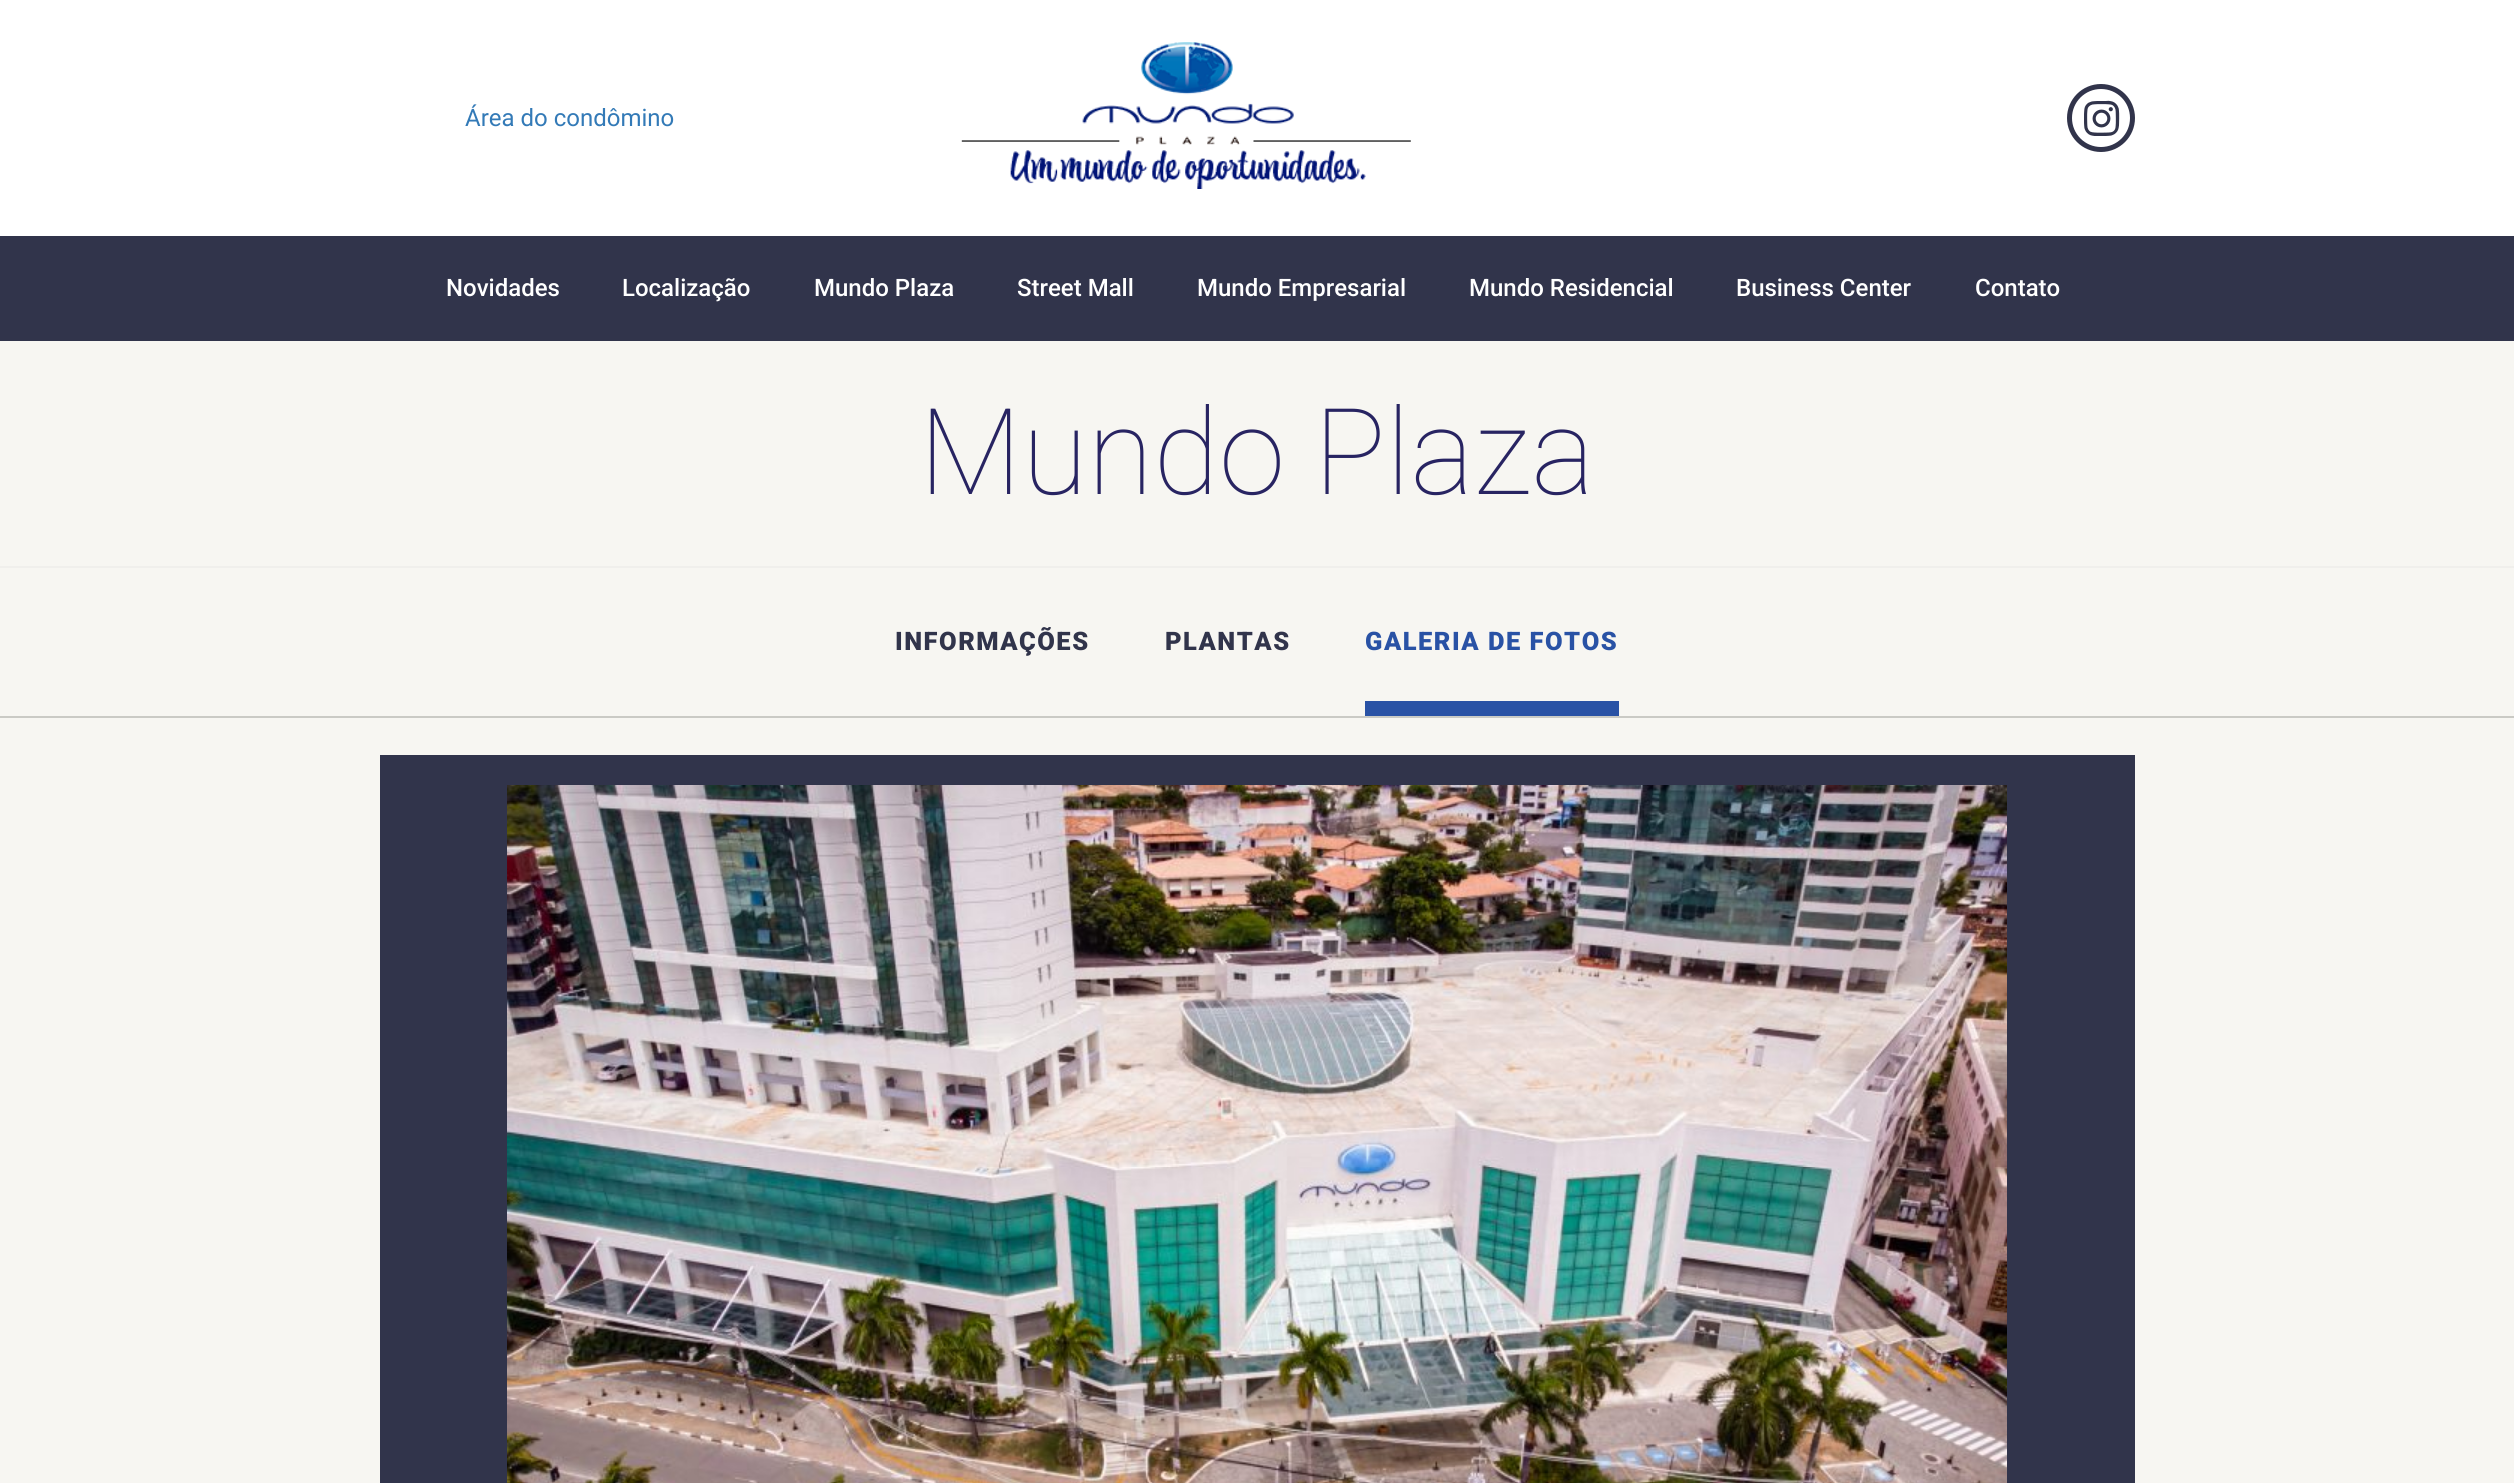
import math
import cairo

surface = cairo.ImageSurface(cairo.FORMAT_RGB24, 2514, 1483)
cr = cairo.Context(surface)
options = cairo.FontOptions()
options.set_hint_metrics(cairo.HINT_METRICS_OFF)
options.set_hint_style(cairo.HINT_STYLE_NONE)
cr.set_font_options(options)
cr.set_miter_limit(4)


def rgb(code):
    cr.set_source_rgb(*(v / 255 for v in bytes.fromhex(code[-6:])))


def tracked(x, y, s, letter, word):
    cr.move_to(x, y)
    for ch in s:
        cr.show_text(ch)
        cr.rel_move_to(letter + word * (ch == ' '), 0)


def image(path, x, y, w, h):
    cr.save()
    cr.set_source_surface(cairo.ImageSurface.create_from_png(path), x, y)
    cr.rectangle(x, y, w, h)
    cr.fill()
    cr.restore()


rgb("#f7f6f2")
cr.paint()
rgb("#ffffff")
cr.rectangle(0, 0, 2514, 236)
cr.fill()
image("img/1.png", 961, 42, 450, 147)
cr.arc(2101, 118, 31.5, 0, 2 * math.pi)
rgb("#31344b")
cr.set_line_width(5)
cr.stroke()
image("img/2.png", 2084, 100, 36, 36)
for x, y, w, h, color in [
    (0, 236, 2514, 105, "#31344b"),
    (0, 566, 2514, 2, "#f0efec"),
    (0, 716, 2514, 2, "#cacac5"),
    (1365, 701, 254, 15, "#2952a5"),
    (380, 755, 1755, 728, "#31344b"),
]:
    rgb(color)
    cr.rectangle(x, y, w, h)
    cr.fill()
image("img/3.png", 507, 785, 1500, 698)
cr.select_font_face("Roboto")
cr.set_font_size(24)
rgb("#337ab7")
cr.move_to(465, 126)
cr.show_text("Área do condômino")
cr.select_font_face("Roboto Medium")
rgb("#ffffff")
for x, y, s in [
    (446, 296, "Novidades"),
    (622, 296, "Localização"),
    (814, 296, "Mundo Plaza"),
    (1017, 296, "Street Mall"),
    (1197, 296, "Mundo Empresarial"),
    (1469, 296, "Mundo Residencial"),
    (1736, 296, "Business Center"),
    (1975, 296, "Contato"),
]:
    cr.move_to(x, y)
    cr.show_text(s)
cr.select_font_face("Roboto Thin")
cr.set_font_size(120)
rgb("#282462")
cr.move_to(919, 494)
cr.show_text("Mundo Plaza")
cr.select_font_face("Roboto Black")
cr.set_font_size(25.5)
rgb("#31344b")
tracked(895, 650, "INFORMAÇÕES", 1.5, 0)
tracked(1165, 650, "PLANTAS", 1.5, 0)
rgb("#2952a5")
tracked(1365, 650, "GALERIA DE FOTOS", 1.5, 0)
surface.write_to_png("page.png")
